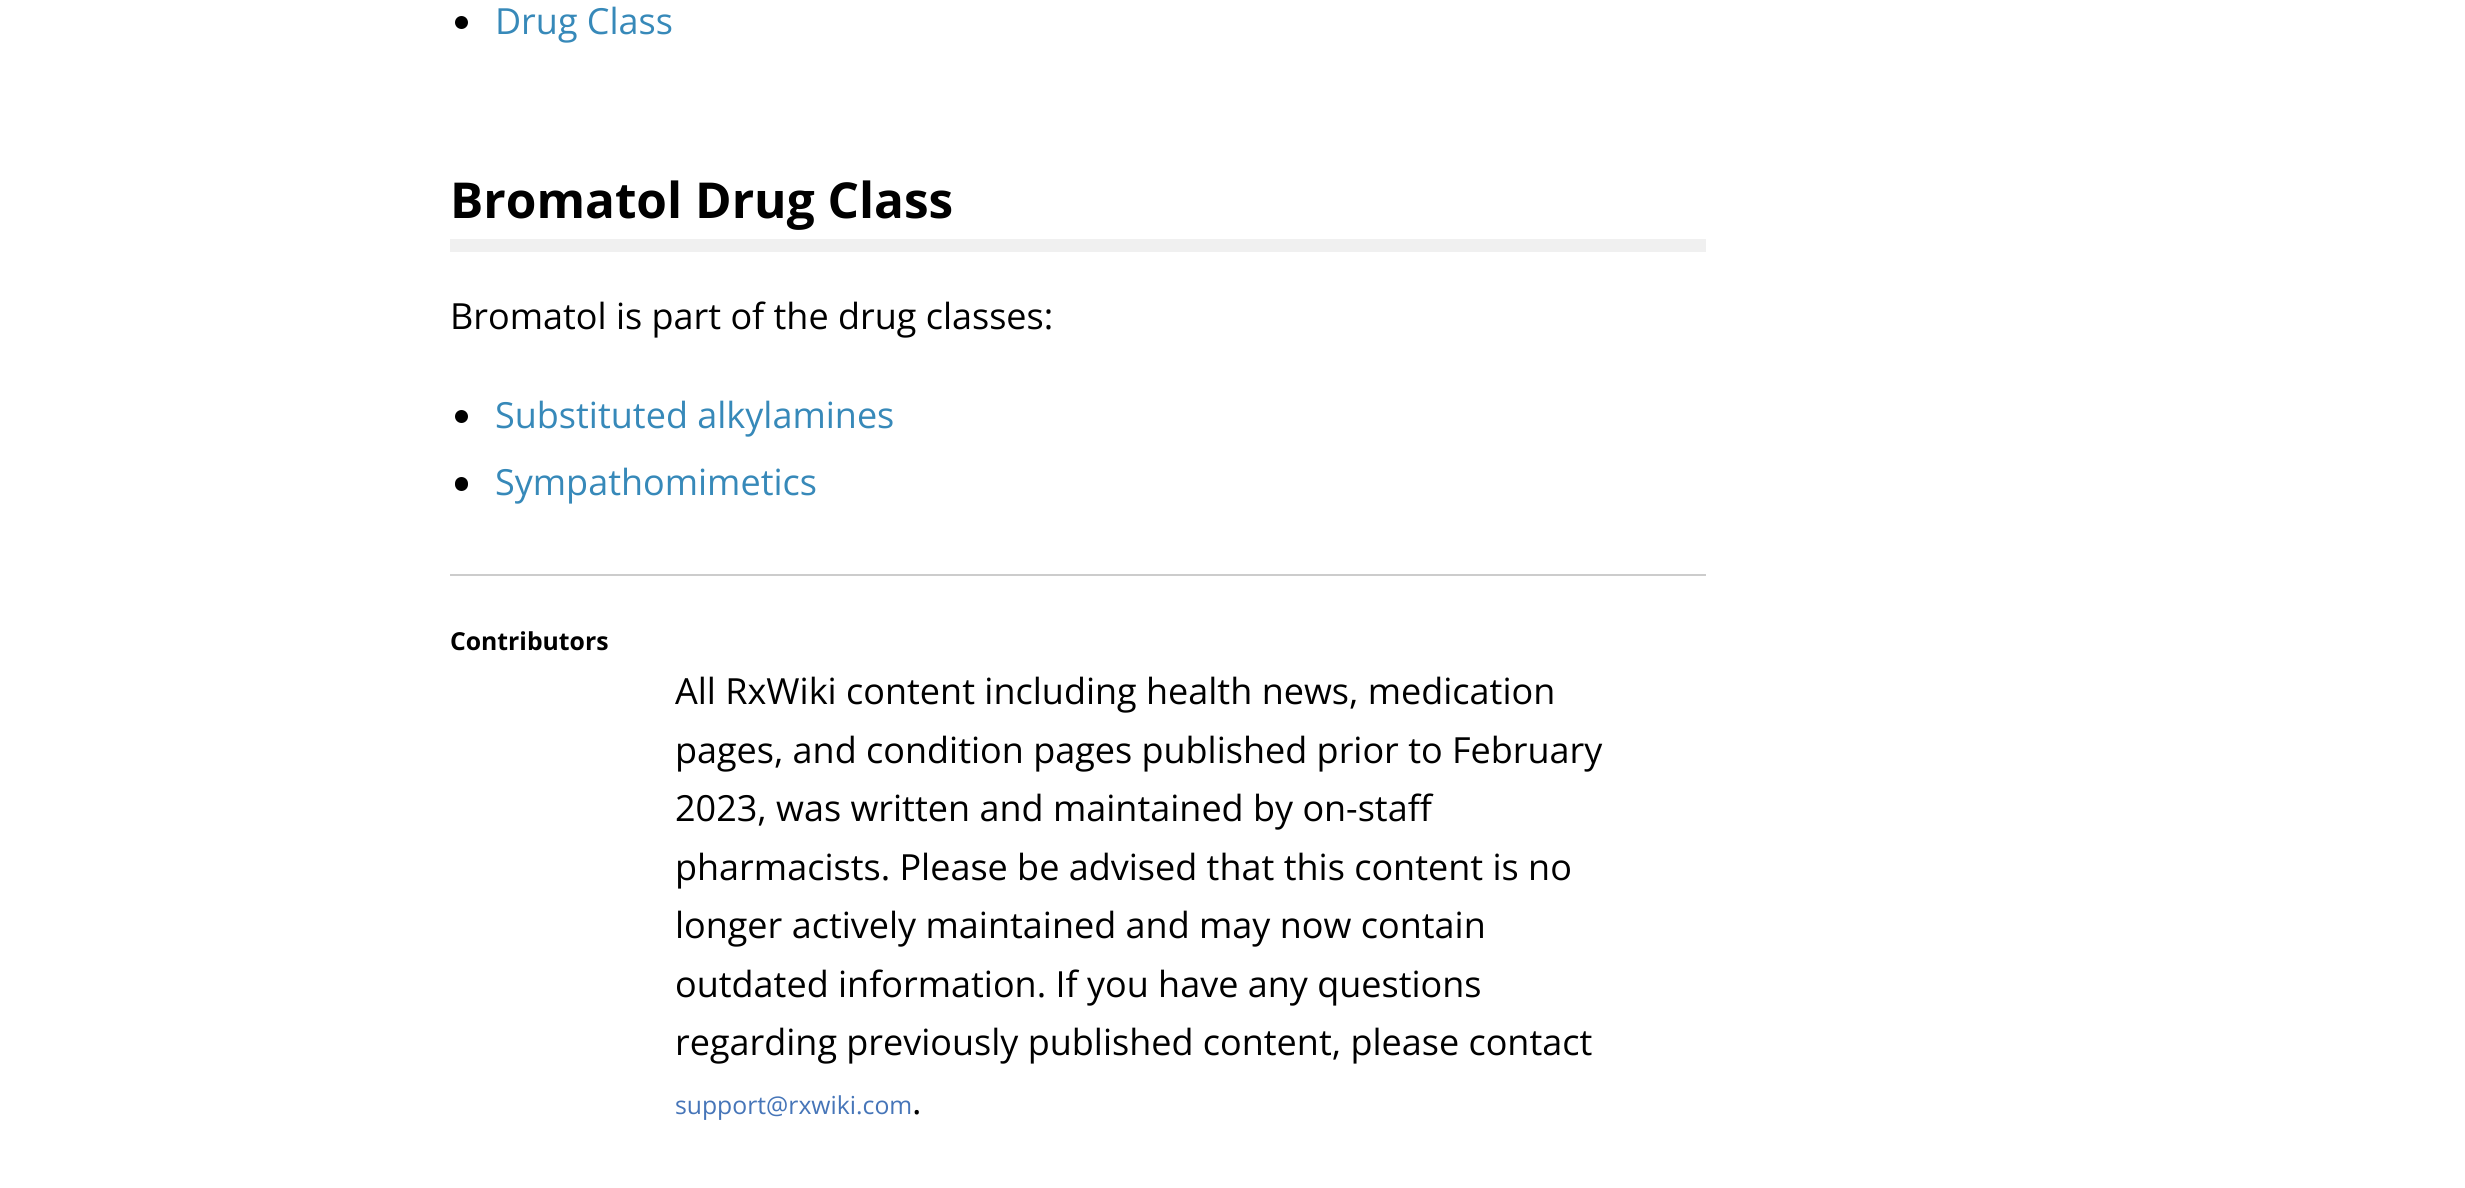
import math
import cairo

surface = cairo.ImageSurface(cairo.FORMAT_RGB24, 2465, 1188)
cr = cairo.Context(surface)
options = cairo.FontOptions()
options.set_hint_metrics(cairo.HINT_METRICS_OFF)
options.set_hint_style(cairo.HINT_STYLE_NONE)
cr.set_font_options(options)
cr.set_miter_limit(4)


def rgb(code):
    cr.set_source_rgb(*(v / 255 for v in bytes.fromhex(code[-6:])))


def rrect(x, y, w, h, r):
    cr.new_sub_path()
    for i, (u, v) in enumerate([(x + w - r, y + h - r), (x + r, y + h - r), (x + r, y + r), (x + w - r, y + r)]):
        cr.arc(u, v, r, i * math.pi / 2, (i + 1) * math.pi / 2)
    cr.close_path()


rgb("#ffffff")
cr.paint()
rgb("#000000")
cr.arc(461.5, 22.5, 6.5, 0, 2 * math.pi)
cr.fill()
rgb("#f0f0f0")
cr.rectangle(450, 239, 1256, 13)
cr.fill()
rgb("#000000")
cr.arc(461.5, 416.5, 6.5, 0, 2 * math.pi)
cr.fill()
rrect(455, 477, 13, 14, 6.5)
cr.fill()
rgb("#cccccc")
cr.rectangle(450, 574, 1256, 2)
cr.fill()
cr.select_font_face("Open Sans")
cr.set_font_size(36)
rgb("#3789b9")
cr.move_to(495, 34)
cr.show_text("Drug Class")
cr.select_font_face("Open Sans", cairo.FONT_SLANT_NORMAL, cairo.FONT_WEIGHT_BOLD)
cr.set_font_size(49.5)
rgb("#000000")
cr.move_to(450, 218)
cr.show_text("Bromatol Drug Class")
cr.select_font_face("Open Sans")
cr.set_font_size(36)
cr.move_to(450, 329)
cr.show_text("Bromatol is part of the drug classes:")
rgb("#3789b9")
cr.move_to(495, 428)
cr.show_text("Substituted alkylamines")
cr.move_to(495, 495)
cr.show_text("Sympathomimetics")
cr.select_font_face("Open Sans", cairo.FONT_SLANT_NORMAL, cairo.FONT_WEIGHT_BOLD)
cr.set_font_size(24.75)
rgb("#000000")
cr.move_to(450, 650)
cr.show_text("Contributors")
cr.select_font_face("Open Sans")
cr.set_font_size(36)
for x, y, s in [
    (675, 704, "All RxWiki content including health news, medication"),
    (675, 763, "pages, and condition pages published prior to February"),
    (675, 821, "2023, was written and maintained by on-staff"),
    (675, 880, "pharmacists. Please be advised that this content is no"),
    (675, 938, "longer actively maintained and may now contain"),
    (675, 997, "outdated information. If you have any questions"),
    (675, 1055, "regarding previously published content, please contact"),
]:
    cr.move_to(x, y)
    cr.show_text(s)
cr.set_font_size(24.75)
rgb("#4675b8")
cr.move_to(675, 1114)
cr.show_text("support@rxwiki.com")
cr.set_font_size(36)
rgb("#000000")
cr.move_to(912, 1114)
cr.show_text(".")
surface.write_to_png("page.png")
